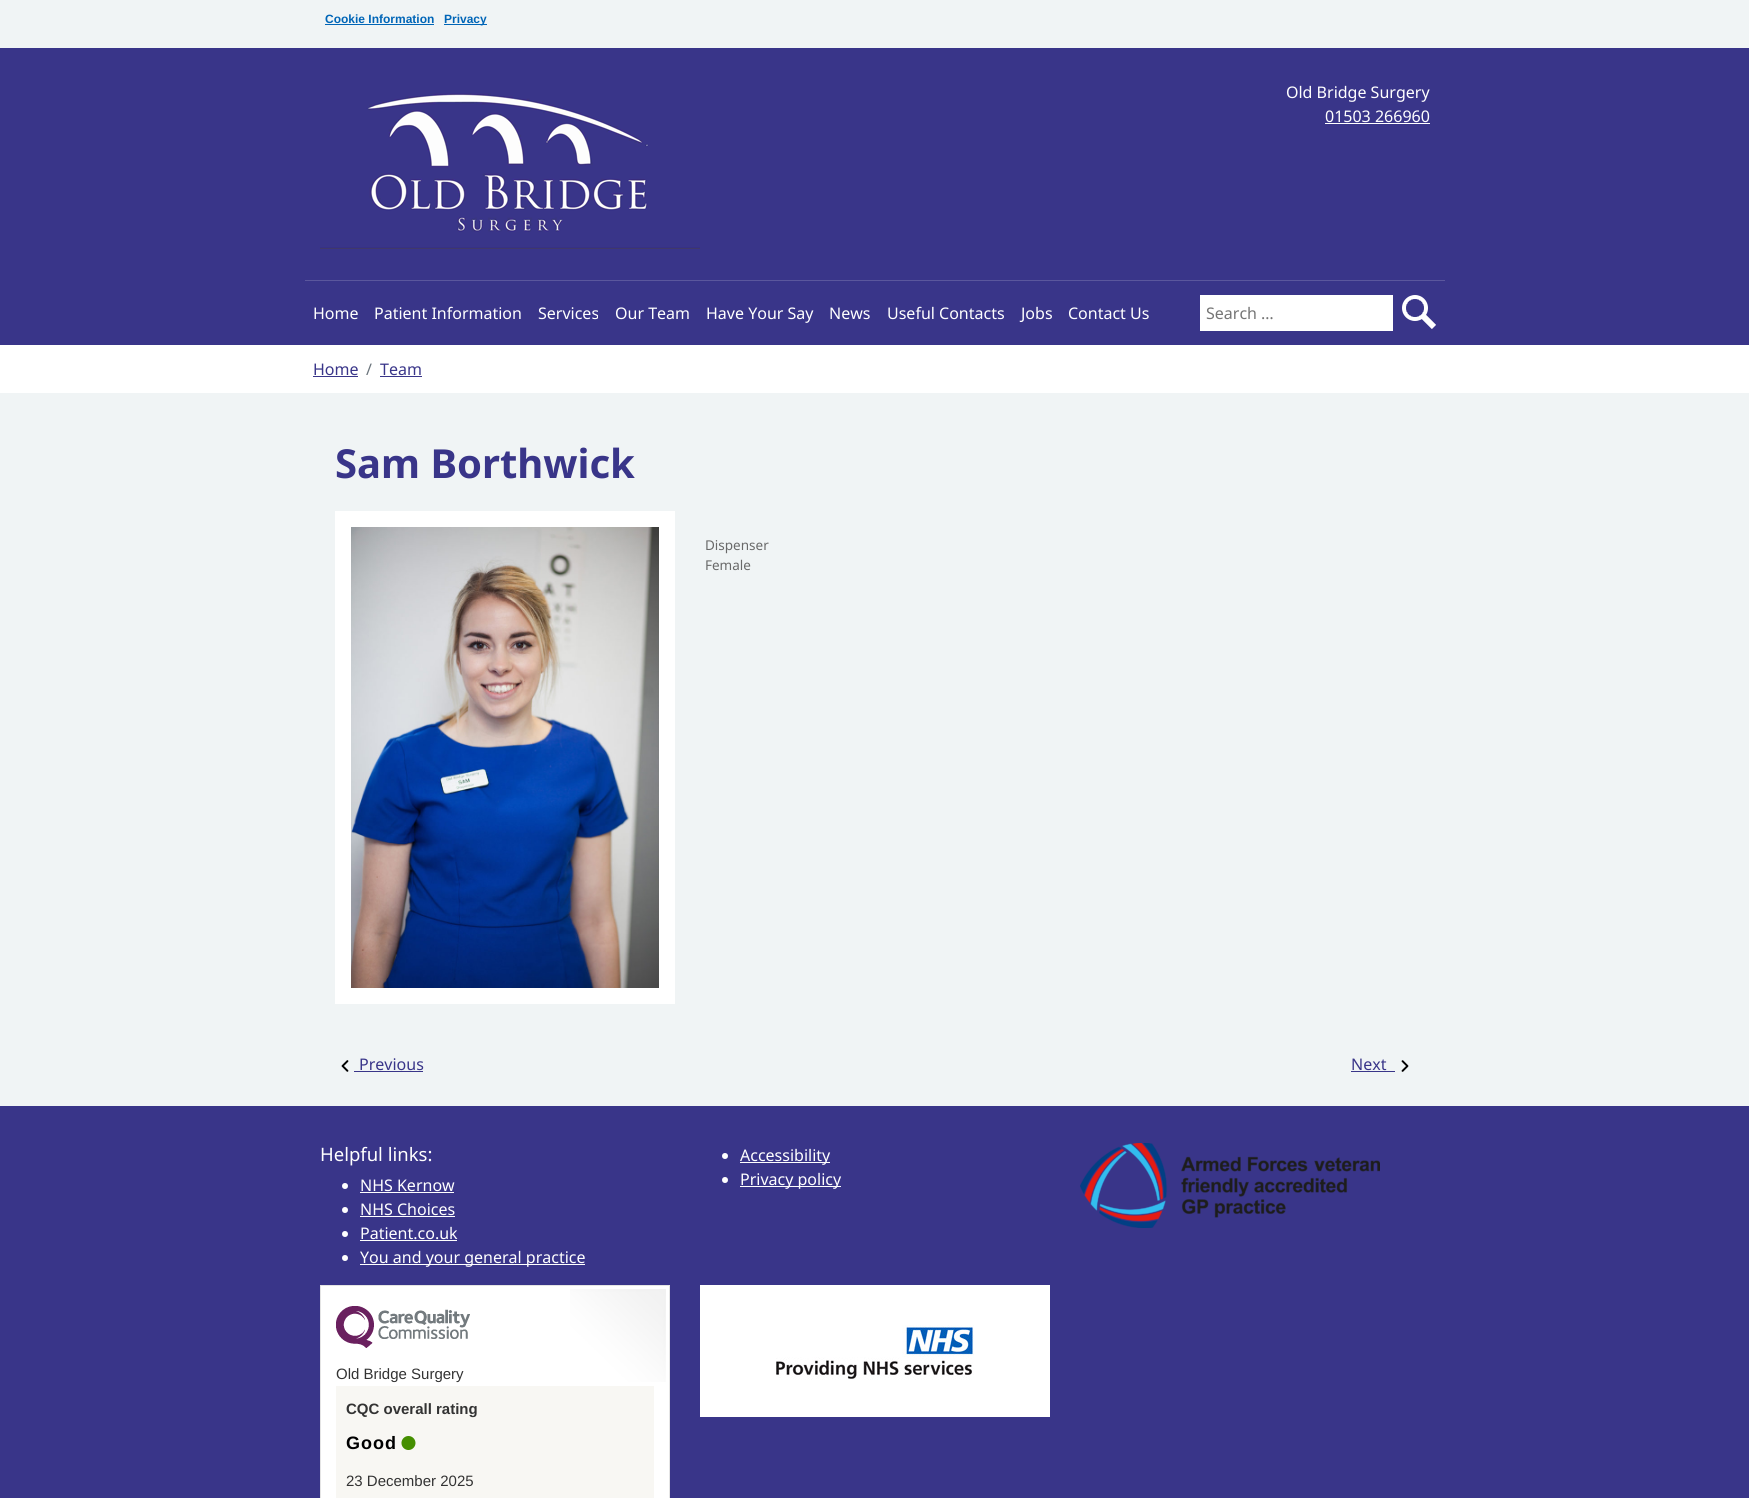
import math
import cairo

surface = cairo.ImageSurface(cairo.FORMAT_RGB24, 1749, 1498)
cr = cairo.Context(surface)
options = cairo.FontOptions()
options.set_hint_metrics(cairo.HINT_METRICS_OFF)
options.set_hint_style(cairo.HINT_STYLE_NONE)
cr.set_font_options(options)
cr.set_miter_limit(4)


def rgb(code):
    cr.set_source_rgb(*(v / 255 for v in bytes.fromhex(code[-6:])))


def tracked(x, y, s, letter, word):
    cr.move_to(x, y)
    for ch in s:
        cr.show_text(ch)
        cr.rel_move_to(letter + word * (ch == ' '), 0)


def image(path, x, y, w, h):
    cr.save()
    cr.set_source_surface(cairo.ImageSurface.create_from_png(path), x, y)
    cr.rectangle(x, y, w, h)
    cr.fill()
    cr.restore()


rgb("#f0f4f5")
cr.paint()
for x, y, w, h, color in [
    (325, 24, 109, 1, "#0065b7"),
    (444, 24, 43, 1, "#0065b7"),
    (0, 48, 1749, 297, "#393589"),
    (305, 280, 1140, 1, "#5b579d"),
]:
    rgb(color)
    cr.rectangle(x, y, w, h)
    cr.fill()
image("img/1.png", 320, 93, 380, 156)
rgb("#ffffff")
cr.rectangle(1325, 123, 105, 1)
cr.fill()
cr.rectangle(1200, 295, 193, 36)
cr.fill()
image("img/2.png", 1402, 295, 34, 34)
for x, y, w, h, color in [
    (0, 345, 1749, 48, "#ffffff"),
    (313, 376, 45, 1, "#393589"),
    (380, 376, 42, 1, "#393589"),
    (335, 511, 340, 493, "#ffffff"),
]:
    rgb(color)
    cr.rectangle(x, y, w, h)
    cr.fill()
image("img/3.png", 351, 527, 308, 461)
image("img/4.png", 341, 1060, 8, 12)
rgb("#393589")
cr.rectangle(354, 1071, 69, 1)
cr.fill()
cr.rectangle(1351, 1071, 44, 1)
cr.fill()
image("img/5.png", 1401, 1060, 8, 12)
cr.rectangle(0, 1106, 1749, 392)
cr.fill()
rgb("#ffffff")
cr.arc(345, 1186, 3, 0, 2 * math.pi)
cr.fill()
cr.rectangle(360, 1192, 94, 1)
cr.fill()
cr.arc(345, 1210, 3, 0, 2 * math.pi)
cr.fill()
cr.rectangle(360, 1216, 95, 1)
cr.fill()
cr.arc(345, 1234, 3, 0, 2 * math.pi)
cr.fill()
cr.rectangle(360, 1240, 97, 1)
cr.fill()
cr.arc(345, 1258, 3, 0, 2 * math.pi)
cr.fill()
cr.rectangle(360, 1264, 225, 1)
cr.fill()
cr.arc(725, 1156, 3, 0, 2 * math.pi)
cr.fill()
cr.rectangle(740, 1162, 90, 1)
cr.fill()
cr.arc(725, 1180, 3, 0, 2 * math.pi)
cr.fill()
cr.rectangle(740, 1186, 101, 1)
cr.fill()
image("img/6.png", 1080, 1143, 300, 85)
cr.rectangle(320.5, 1285.5, 349, 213)
cr.fill_preserve()
rgb("#e4e4e4")
cr.set_line_width(1)
cr.stroke()
image("img/7.png", 570, 1289, 96, 93)
image("img/8.png", 336, 1306, 134, 42)
rgb("#f8f7f3")
cr.rectangle(336, 1386, 318, 112)
cr.fill()
image("img/9.png", 401, 1436, 15, 14)
rgb("#ffffff")
cr.rectangle(700, 1285, 350, 132)
cr.fill()
image("img/10.png", 776, 1325, 198, 55)
cr.select_font_face("Liberation Sans", cairo.FONT_SLANT_NORMAL, cairo.FONT_WEIGHT_BOLD)
cr.set_font_size(12)
rgb("#0065b7")
cr.move_to(325, 23)
cr.show_text("Cookie Information")
cr.move_to(444, 23)
cr.show_text("Privacy")
cr.select_font_face("Noto Sans")
cr.set_font_size(16)
rgb("#ffffff")
for x, y, s in [
    (1286, 98, "Old Bridge Surgery"),
    (1325, 122, "01503 266960"),
    (313, 319, "Home"),
    (374, 319, "Patient Information"),
    (538, 319, "Services"),
    (615, 319, "Our Team"),
    (706, 319, "Have Your Say"),
    (829, 319, "News"),
    (887, 319, "Useful Contacts"),
    (1021, 319, "Jobs"),
    (1068, 319, "Contact Us"),
]:
    cr.move_to(x, y)
    cr.show_text(s)
rgb("#757575")
cr.move_to(1206, 319)
cr.show_text("Search …")
rgb("#393589")
cr.move_to(313, 375)
cr.show_text("Home")
rgb("#6c757d")
cr.move_to(366, 375)
cr.show_text("/")
rgb("#393589")
cr.move_to(380, 375)
cr.show_text("Team")
cr.select_font_face("Noto Sans", cairo.FONT_SLANT_NORMAL, cairo.FONT_WEIGHT_BOLD)
cr.set_font_size(40)
cr.move_to(335, 478)
cr.show_text("Sam Borthwick")
cr.select_font_face("Noto Sans")
cr.set_font_size(13.5)
rgb("#696969")
cr.move_to(705, 550)
cr.show_text("Dispenser")
cr.move_to(705, 570)
cr.show_text("Female")
cr.set_font_size(16)
rgb("#393589")
cr.move_to(359, 1070)
cr.show_text("Previous")
cr.move_to(1351, 1070)
cr.show_text("Next")
cr.set_font_size(18.5)
rgb("#ffffff")
cr.move_to(320, 1161)
cr.show_text("Helpful links:")
cr.set_font_size(16)
for x, y, s in [
    (360, 1191, "NHS Kernow"),
    (360, 1215, "NHS Choices"),
    (360, 1239, "Patient.co.uk"),
    (360, 1263, "You and your general practice"),
    (740, 1161, "Accessibility"),
    (740, 1185, "Privacy policy"),
]:
    cr.move_to(x, y)
    cr.show_text(s)
cr.select_font_face("Liberation Sans")
cr.set_font_size(15)
rgb("#333333")
cr.move_to(336, 1379)
cr.show_text("Old Bridge Surgery")
cr.select_font_face("Liberation Sans", cairo.FONT_SLANT_NORMAL, cairo.FONT_WEIGHT_BOLD)
cr.move_to(346, 1414)
cr.show_text("CQC overall rating")
cr.set_font_size(18)
rgb("#000000")
tracked(346, 1449, "Good", 1, 0)
cr.select_font_face("Liberation Sans")
cr.set_font_size(15)
rgb("#333333")
cr.move_to(346, 1486)
cr.show_text("23 December 2025")
surface.write_to_png("page.png")
